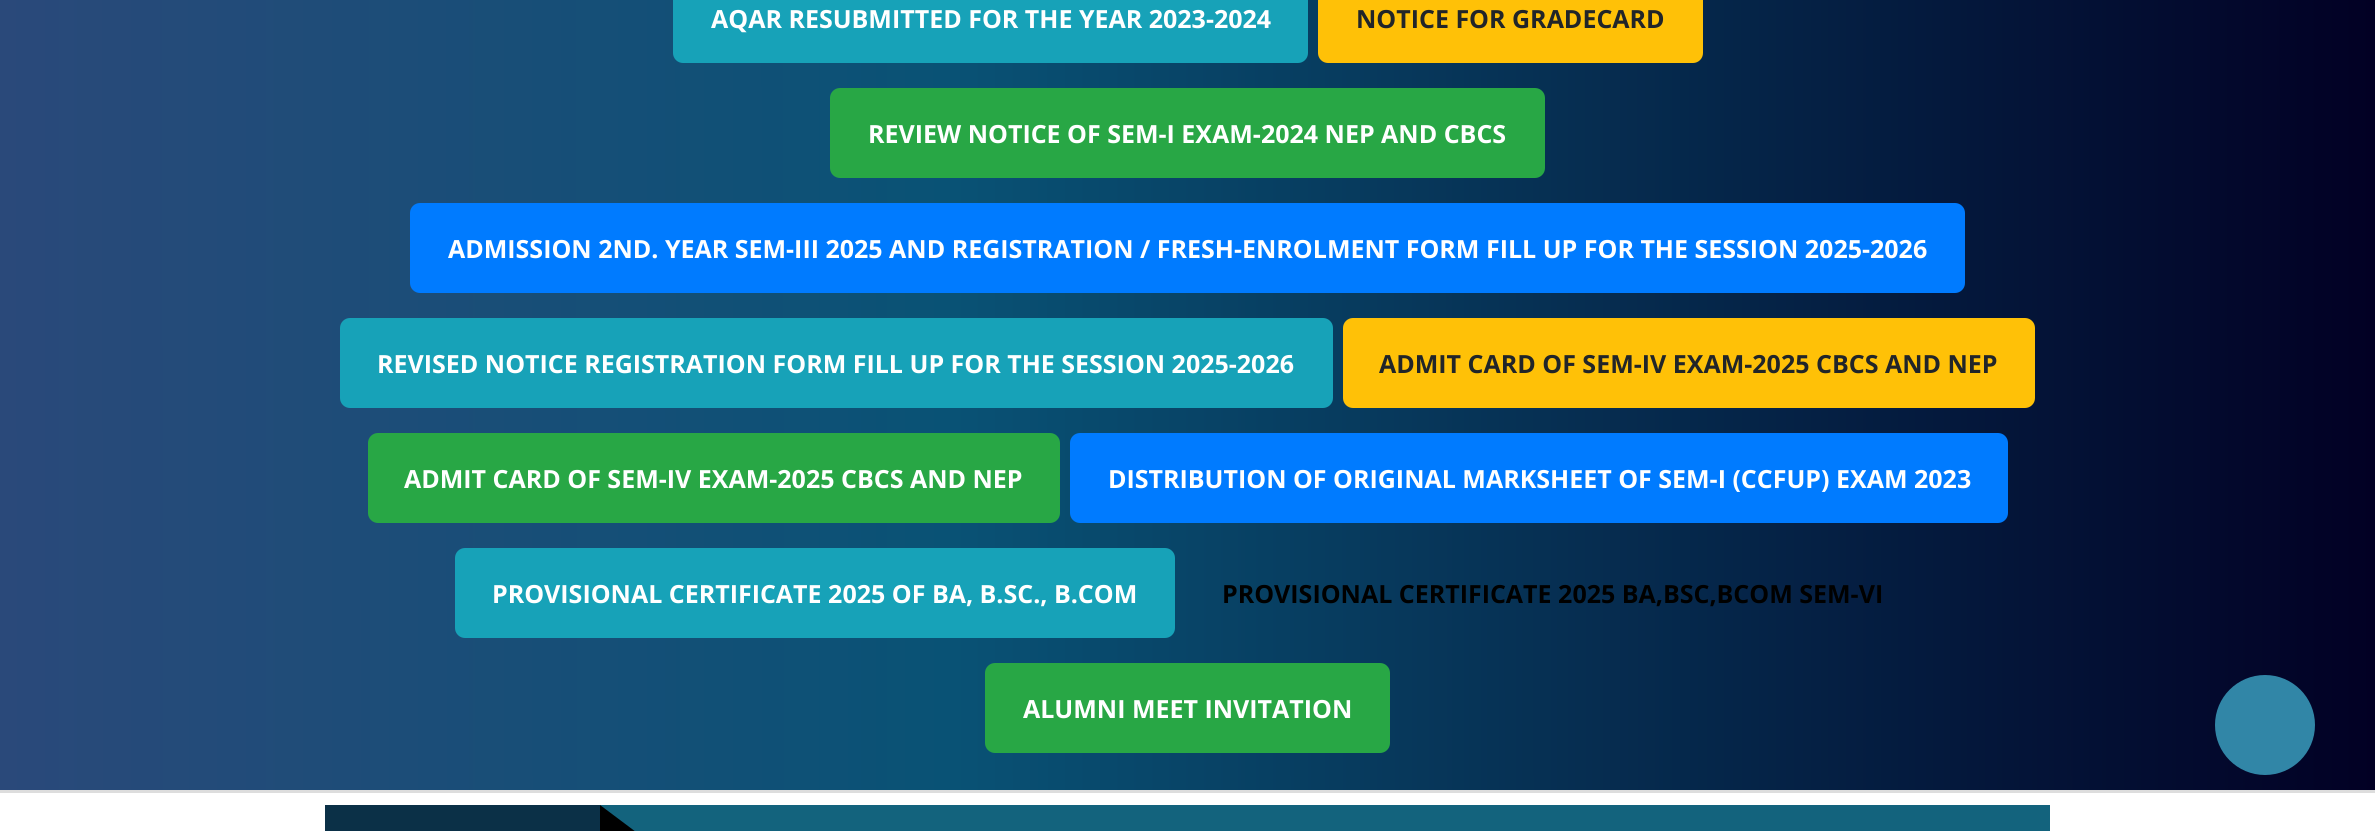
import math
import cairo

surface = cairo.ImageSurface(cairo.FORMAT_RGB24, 2375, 831)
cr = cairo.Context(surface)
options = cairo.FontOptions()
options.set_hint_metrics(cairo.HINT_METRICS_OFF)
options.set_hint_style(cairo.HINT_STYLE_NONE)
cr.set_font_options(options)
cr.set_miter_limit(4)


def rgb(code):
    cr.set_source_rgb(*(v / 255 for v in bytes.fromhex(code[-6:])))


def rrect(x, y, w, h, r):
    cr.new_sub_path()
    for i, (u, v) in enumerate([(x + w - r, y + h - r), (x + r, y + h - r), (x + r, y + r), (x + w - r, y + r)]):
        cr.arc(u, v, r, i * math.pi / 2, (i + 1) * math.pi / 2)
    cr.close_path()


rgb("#ffffff")
cr.paint()
gradient = cairo.LinearGradient(0, 363, 2375, 362)
gradient.add_color_stop_rgba(0, 0.165, 0.286, 0.478, 1)
gradient.add_color_stop_rgba(0.4, 0.035, 0.322, 0.459, 1)
gradient.add_color_stop_rgba(1, 0.008, 0, 0.141, 1)
cr.set_source(gradient)
cr.rectangle(0, 0, 2375, 790)
cr.fill()
rgb("#17a2b8")
rrect(673, -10, 635, 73, 10)
cr.fill()
rgb("#ffc107")
rrect(1318, -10, 385, 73, 10)
cr.fill()
rgb("#28a745")
rrect(830, 88, 715, 90, 10)
cr.fill()
rgb("#007bff")
rrect(410, 203, 1555, 90, 10)
cr.fill()
rgb("#17a2b8")
rrect(340, 318, 993, 90, 10)
cr.fill()
rgb("#ffc107")
rrect(1343, 318, 692, 90, 10)
cr.fill()
rgb("#28a745")
rrect(368, 433, 692, 90, 10)
cr.fill()
rgb("#007bff")
rrect(1070, 433, 938, 90, 10)
cr.fill()
rgb("#17a2b8")
rrect(455, 548, 720, 90, 10)
cr.fill()
rgb("#28a745")
rrect(985, 663, 405, 90, 10)
cr.fill()
for x, y, w, h, color in [
    (0, 790, 2375, 3, "#dddddd"),
    (600, 805, 1450, 26, "#13637d"),
    (325, 805, 275, 26, "#0b3047"),
]:
    rgb(color)
    cr.rectangle(x, y, w, h)
    cr.fill()
rgb("#000000")
cr.new_path()
cr.move_to(600, 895)
cr.line_to(600, 805)
cr.line_to(660, 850)
cr.close_path()
cr.fill()
rgb("#3186a7")
cr.arc(2265, 725, 50, 0, 2 * math.pi)
cr.fill()
cr.select_font_face("Open Sans", cairo.FONT_SLANT_NORMAL, cairo.FONT_WEIGHT_BOLD)
cr.set_font_size(25)
rgb("#ffffff")
cr.move_to(711, 28)
cr.show_text("AQAR RESUBMITTED FOR THE YEAR 2023-2024")
rgb("#212529")
cr.move_to(1356, 28)
cr.show_text("NOTICE FOR GRADECARD")
rgb("#ffffff")
for x, y, s in [
    (868, 143, "REVIEW NOTICE OF SEM-I EXAM-2024 NEP AND CBCS"),
    (448, 258, "ADMISSION 2ND. YEAR SEM-III 2025 AND REGISTRATION / FRESH-ENROLMENT FORM FILL UP FOR THE SESSION 2025-2026"),
    (377, 373, "REVISED NOTICE REGISTRATION FORM FILL UP FOR THE SESSION 2025-2026"),
]:
    cr.move_to(x, y)
    cr.show_text(s)
rgb("#212529")
cr.move_to(1379, 373)
cr.show_text("ADMIT CARD OF SEM-IV EXAM-2025 CBCS AND NEP")
rgb("#ffffff")
for x, y, s in [
    (404, 488, "ADMIT CARD OF SEM-IV EXAM-2025 CBCS AND NEP"),
    (1108, 488, "DISTRIBUTION OF ORIGINAL MARKSHEET OF SEM-I (CCFUP) EXAM 2023"),
    (492, 603, "PROVISIONAL CERTIFICATE 2025 OF BA, B.SC., B.COM"),
]:
    cr.move_to(x, y)
    cr.show_text(s)
rgb("#000000")
cr.move_to(1222, 603)
cr.show_text("PROVISIONAL CERTIFICATE 2025 BA,BSC,BCOM SEM-VI")
rgb("#ffffff")
cr.move_to(1023, 718)
cr.show_text("ALUMNI MEET INVITATION")
surface.write_to_png("page.png")
